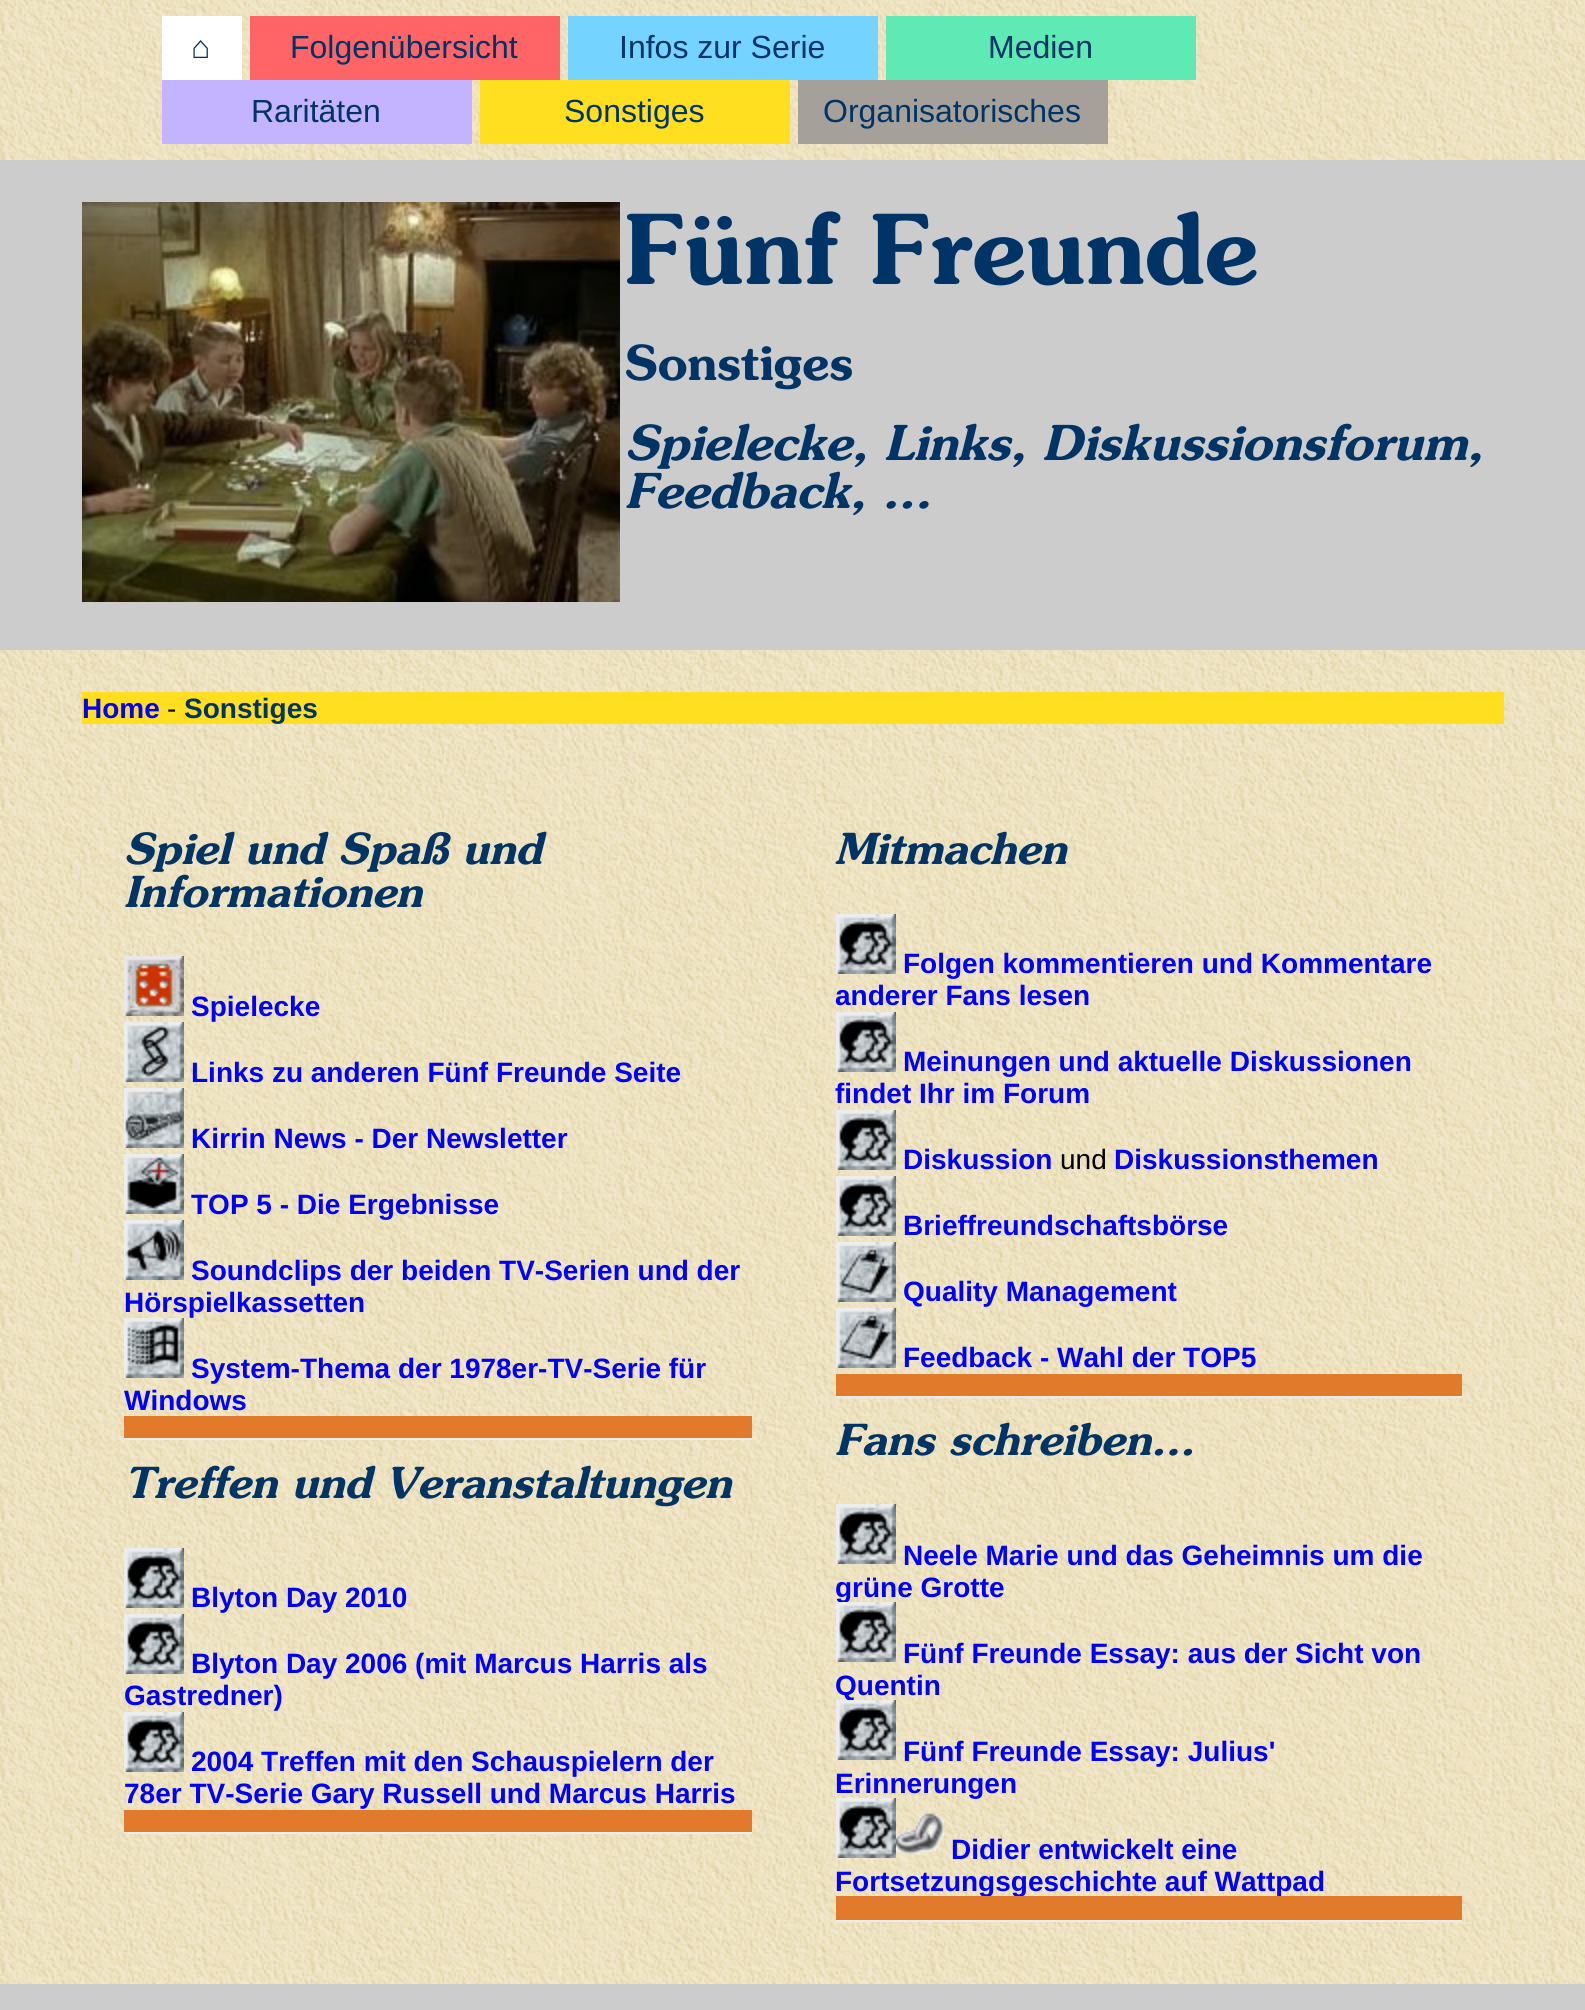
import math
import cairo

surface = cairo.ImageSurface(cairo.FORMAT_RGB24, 1585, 2010)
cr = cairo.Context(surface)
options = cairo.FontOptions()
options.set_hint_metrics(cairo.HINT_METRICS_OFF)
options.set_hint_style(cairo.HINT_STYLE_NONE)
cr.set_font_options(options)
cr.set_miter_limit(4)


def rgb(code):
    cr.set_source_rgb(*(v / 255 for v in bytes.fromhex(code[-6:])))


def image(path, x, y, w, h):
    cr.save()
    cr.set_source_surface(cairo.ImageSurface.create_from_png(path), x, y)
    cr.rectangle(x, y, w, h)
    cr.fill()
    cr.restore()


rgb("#ffffff")
cr.paint()
image("img/1.png", 0, 0, 1585, 1984)
for x, y, w, h, color in [
    (162, 16, 80, 64, "#ffffff"),
    (250, 16, 310, 64, "#ff6467"),
    (568, 16, 310, 64, "#74d4ff"),
    (886, 16, 310, 64, "#5ee9b5"),
    (162, 80, 310, 64, "#c4b4ff"),
    (480, 80, 310, 64, "#ffdf20"),
    (798, 80, 310, 64, "#a6a09b"),
    (0, 160, 1585, 490, "#cccccc"),
]:
    rgb(color)
    cr.rectangle(x, y, w, h)
    cr.fill()
image("img/2.png", 82, 202, 538, 400)
rgb("#ffdf20")
cr.rectangle(82, 692, 1422, 32)
cr.fill()
image("img/3.png", 124, 956, 60, 60)
image("img/4.png", 124, 1022, 60, 60)
image("img/5.png", 124, 1088, 60, 60)
image("img/6.png", 124, 1154, 60, 60)
image("img/7.png", 124, 1220, 60, 60)
image("img/8.png", 124, 1318, 60, 60)
rgb("#e17a2a")
cr.rectangle(124, 1416, 628, 22)
cr.fill()
rgb("#eeeeee")
cr.rectangle(124, 1438, 628, 2)
cr.fill()
image("img/9.png", 124, 1548, 60, 60)
image("img/9.png", 124, 1614, 60, 60)
image("img/9.png", 124, 1712, 60, 60)
rgb("#e17a2a")
cr.rectangle(124, 1810, 628, 22)
cr.fill()
rgb("#eeeeee")
cr.rectangle(124, 1832, 628, 2)
cr.fill()
image("img/9.png", 836, 914, 60, 60)
image("img/9.png", 836, 1012, 60, 60)
image("img/9.png", 836, 1110, 60, 60)
image("img/9.png", 836, 1176, 60, 60)
image("img/10.png", 836, 1242, 60, 60)
image("img/10.png", 836, 1308, 60, 60)
rgb("#e17a2a")
cr.rectangle(836, 1374, 626, 22)
cr.fill()
rgb("#eeeeee")
cr.rectangle(836, 1396, 626, 2)
cr.fill()
image("img/9.png", 836, 1504, 60, 60)
image("img/11.png", 896, 1813, 48, 42)
cr.rectangle(836, 1920, 626, 2)
cr.fill()
rgb("#cccccc")
cr.rectangle(0, 1984, 1585, 26)
cr.fill()
cr.select_font_face("Liberation Sans")
cr.set_font_size(32)
rgb("#003366")
for x, y, s in [
    (191, 58, "⌂"),
    (290, 58, "Folgenübersicht"),
    (619, 58, "Infos zur Serie"),
    (988, 58, "Medien"),
    (251, 122, "Raritäten"),
    (564, 122, "Sonstiges"),
    (823, 122, "Organisatorisches"),
]:
    cr.move_to(x, y)
    cr.show_text(s)
cr.select_font_face("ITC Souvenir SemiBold")
cr.set_font_size(96)
cr.move_to(625, 284)
cr.show_text("Fünf Freunde")
cr.set_font_size(48)
cr.move_to(625, 380)
cr.show_text("Sonstiges")
cr.select_font_face("ITC Souvenir SemiBold", cairo.FONT_SLANT_ITALIC)
cr.move_to(625, 460)
cr.show_text("Spielecke, Links, Diskussionsforum,")
cr.move_to(625, 508)
cr.show_text("Feedback, ...")
cr.select_font_face("Liberation Sans", cairo.FONT_SLANT_NORMAL, cairo.FONT_WEIGHT_BOLD)
cr.set_font_size(28)
rgb("#0000ff")
cr.move_to(82, 718)
cr.show_text("Home")
cr.select_font_face("Liberation Sans")
rgb("#000000")
cr.move_to(167, 718)
cr.show_text("-")
cr.select_font_face("Liberation Sans", cairo.FONT_SLANT_NORMAL, cairo.FONT_WEIGHT_BOLD)
rgb("#003366")
cr.move_to(184, 718)
cr.show_text("Sonstiges")
cr.select_font_face("ITC Souvenir SemiBold", cairo.FONT_SLANT_ITALIC)
cr.set_font_size(42.7)
cr.move_to(124, 864)
cr.show_text("Spiel und Spaß und")
cr.move_to(124, 907)
cr.show_text("Informationen")
cr.select_font_face("Liberation Sans", cairo.FONT_SLANT_NORMAL, cairo.FONT_WEIGHT_BOLD)
cr.set_font_size(28)
rgb("#0000ff")
for x, y, s in [
    (191, 1016, "Spielecke"),
    (191, 1082, "Links zu anderen Fünf Freunde Seite"),
    (191, 1148, "Kirrin News - Der Newsletter"),
    (191, 1214, "TOP 5 - Die Ergebnisse"),
    (191, 1280, "Soundclips der beiden TV-Serien und der"),
    (124, 1312, "Hörspielkassetten"),
    (191, 1378, "System-Thema der 1978er-TV-Serie für"),
    (124, 1410, "Windows"),
]:
    cr.move_to(x, y)
    cr.show_text(s)
cr.select_font_face("ITC Souvenir SemiBold", cairo.FONT_SLANT_ITALIC)
cr.set_font_size(42.7)
rgb("#003366")
cr.move_to(124, 1498)
cr.show_text("Treffen und Veranstaltungen")
cr.select_font_face("Liberation Sans", cairo.FONT_SLANT_NORMAL, cairo.FONT_WEIGHT_BOLD)
cr.set_font_size(28)
rgb("#0000ff")
for x, y, s in [
    (191, 1607, "Blyton Day 2010"),
    (191, 1673, "Blyton Day 2006 (mit Marcus Harris als"),
    (124, 1705, "Gastredner)"),
    (191, 1771, "2004 Treffen mit den Schauspielern der"),
    (124, 1803, "78er TV-Serie Gary Russell und Marcus Harris"),
]:
    cr.move_to(x, y)
    cr.show_text(s)
cr.select_font_face("ITC Souvenir SemiBold", cairo.FONT_SLANT_ITALIC)
cr.set_font_size(42.7)
rgb("#003366")
cr.move_to(835, 864)
cr.show_text("Mitmachen")
cr.select_font_face("Liberation Sans", cairo.FONT_SLANT_NORMAL, cairo.FONT_WEIGHT_BOLD)
cr.set_font_size(28)
rgb("#0000ff")
for x, y, s in [
    (903, 973, "Folgen kommentieren und Kommentare"),
    (835, 1005, "anderer Fans lesen"),
    (903, 1071, "Meinungen und aktuelle Diskussionen"),
    (835, 1103, "findet Ihr im Forum"),
    (903, 1169, "Diskussion"),
]:
    cr.move_to(x, y)
    cr.show_text(s)
cr.select_font_face("Liberation Sans")
rgb("#000000")
cr.move_to(1060, 1169)
cr.show_text("und")
cr.select_font_face("Liberation Sans", cairo.FONT_SLANT_NORMAL, cairo.FONT_WEIGHT_BOLD)
rgb("#0000ff")
for x, y, s in [
    (1114, 1169, "Diskussionsthemen"),
    (903, 1235, "Brieffreundschaftsbörse"),
    (903, 1301, "Quality Management"),
    (903, 1367, "Feedback - Wahl der TOP5"),
]:
    cr.move_to(x, y)
    cr.show_text(s)
cr.select_font_face("ITC Souvenir SemiBold", cairo.FONT_SLANT_ITALIC)
cr.set_font_size(42.7)
rgb("#003366")
cr.move_to(835, 1455)
cr.show_text("Fans schreiben...")
cr.select_font_face("Liberation Sans", cairo.FONT_SLANT_NORMAL, cairo.FONT_WEIGHT_BOLD)
cr.set_font_size(28)
rgb("#0000ff")
cr.move_to(903, 1565)
cr.show_text("Neele Marie und das Geheimnis um die")
cr.move_to(835, 1597)
cr.show_text("grüne Grotte")
image("img/9.png", 836, 1602, 60, 60)
cr.move_to(903, 1663)
cr.show_text("Fünf Freunde Essay: aus der Sicht von")
cr.move_to(835, 1695)
cr.show_text("Quentin")
image("img/9.png", 836, 1700, 60, 60)
cr.move_to(903, 1761)
cr.show_text("Fünf Freunde Essay: Julius'")
cr.move_to(835, 1793)
cr.show_text("Erinnerungen")
image("img/9.png", 836, 1798, 60, 60)
cr.move_to(951, 1859)
cr.show_text("Didier entwickelt eine")
cr.move_to(835, 1891)
cr.show_text("Fortsetzungsgeschichte auf Wattpad")
rgb("#e17a2a")
cr.rectangle(836, 1896, 626, 24)
cr.fill()
surface.write_to_png("page.png")
